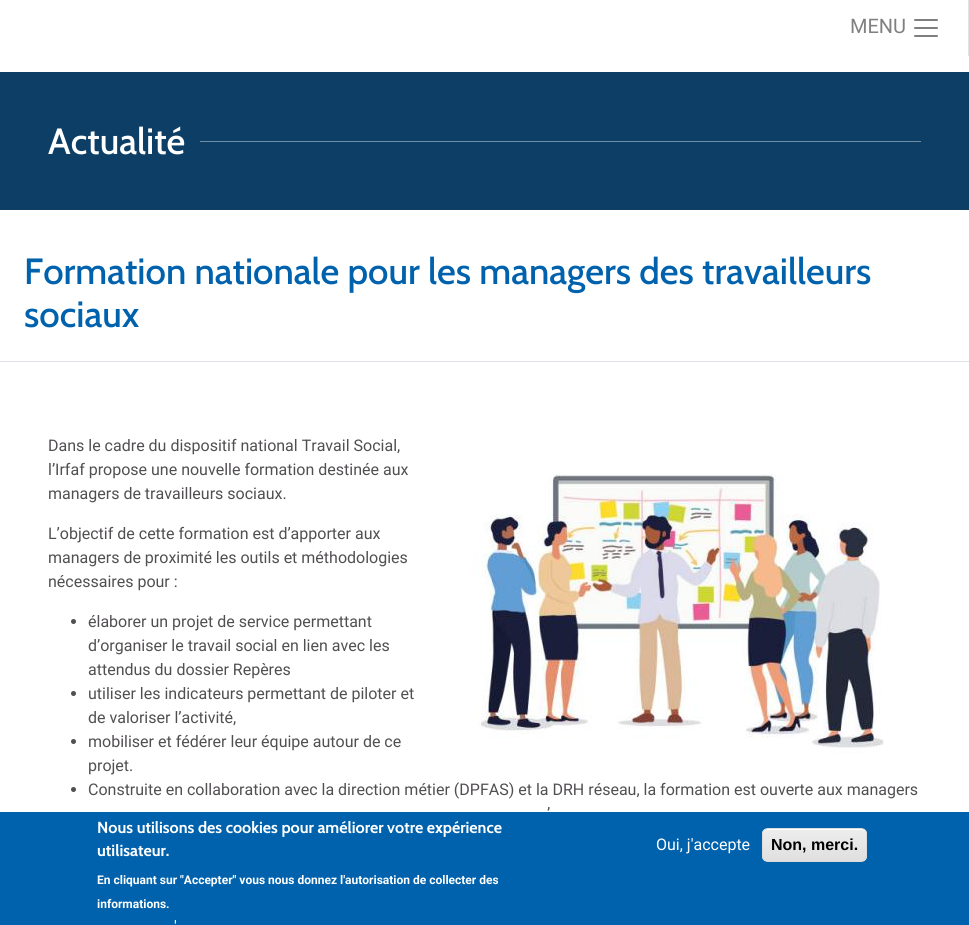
import math
import cairo

surface = cairo.ImageSurface(cairo.FORMAT_RGB24, 969, 925)
cr = cairo.Context(surface)
options = cairo.FontOptions()
options.set_hint_metrics(cairo.HINT_METRICS_OFF)
options.set_hint_style(cairo.HINT_STYLE_NONE)
cr.set_font_options(options)
cr.set_miter_limit(4)


def rgb(code):
    cr.set_source_rgb(*(v / 255 for v in bytes.fromhex(code[-6:])))


def rrect(x, y, w, h, r):
    cr.new_sub_path()
    for i, (u, v) in enumerate([(x + w - r, y + h - r), (x + r, y + h - r), (x + r, y + r), (x + w - r, y + r)]):
        cr.arc(u, v, r, i * math.pi / 2, (i + 1) * math.pi / 2)
    cr.close_path()


def image(path, x, y, w, h):
    cr.save()
    cr.set_source_surface(cairo.ImageSurface.create_from_png(path), x, y)
    cr.rectangle(x, y, w, h)
    cr.fill()
    cr.restore()


rgb("#ffffff")
cr.paint()
rgb("#dee2e6")
cr.rectangle(968, 0, 1, 56)
cr.fill()
image("img/1.png", 914, 19, 24, 18)
for x, y, w, h, color in [
    (0, 72, 969, 138, "#0d3f66"),
    (200, 141, 721, 1, "#6e8ca3"),
    (0, 361, 969, 1, "#dee2e6"),
]:
    rgb(color)
    cr.rectangle(x, y, w, h)
    cr.fill()
rgb("#524f52")
cr.arc(73.5, 621.5, 2.5, 0, 2 * math.pi)
cr.fill()
cr.arc(73.5, 693.5, 2.5, 0, 2 * math.pi)
cr.fill()
cr.arc(73.5, 741.5, 2.5, 0, 2 * math.pi)
cr.fill()
cr.arc(73.5, 789.5, 2.5, 0, 2 * math.pi)
cr.fill()
image("img/2.png", 473, 474, 411, 279)
rgb("#0062ad")
cr.rectangle(0, 812, 969, 113)
cr.fill()
cr.save()
rrect(762, 828, 105, 34, 6)
cr.clip()
gradient = cairo.LinearGradient(815, 829, 815, 861)
gradient.add_color_stop_rgba(0.05, 0.929, 0.929, 0.929, 1)
gradient.add_color_stop_rgba(1, 0.875, 0.875, 0.875, 1)
cr.set_source(gradient)
cr.rectangle(762, 829, 105, 32)
cr.fill()
cr.restore()
rgb("#ffffff")
cr.new_path()
cr.move_to(768, 830)
cr.line_to(861, 830)
cr.curve_to(864, 830, 866, 832, 866, 835)
cr.curve_to(866, 825, 851, 829, 846, 829)
cr.line_to(784, 829)
cr.curve_to(778, 829, 763, 825, 763, 835)
cr.curve_to(763, 832, 765, 830, 768, 830)
cr.close_path()
cr.fill()
rrect(762.5, 828.5, 104, 33, 5.5)
rgb("#dcdcdc")
cr.set_line_width(1)
cr.stroke()
cr.select_font_face("Roboto")
cr.set_font_size(20)
rgb("#808080")
cr.move_to(850, 33)
cr.show_text("MENU")
cr.select_font_face("Cabin Medium")
cr.set_font_size(36.5)
rgb("#ffffff")
cr.move_to(48, 154)
cr.show_text("Actualité")
rgb("#0062ad")
cr.move_to(24, 284)
cr.show_text("Formation nationale pour les managers des travailleurs")
cr.move_to(24, 327)
cr.show_text("sociaux")
cr.select_font_face("Roboto")
cr.set_font_size(16)
rgb("#524f52")
for x, y, s in [
    (48, 451, "Dans le cadre du dispositif national Travail Social,"),
    (48, 475, "l’Irfaf propose une nouvelle formation destinée aux"),
    (48, 499, "managers de travailleurs sociaux."),
    (48, 539, "L’objectif de cette formation est d’apporter aux"),
    (48, 563, "managers de proximité les outils et méthodologies"),
    (48, 587, "nécessaires pour :"),
    (88, 627, "élaborer un projet de service permettant"),
    (88, 651, "d’organiser le travail social en lien avec les"),
    (88, 675, "attendus du dossier Repères"),
    (88, 699, "utiliser les indicateurs permettant de piloter et"),
    (88, 723, "de valoriser l’activité,"),
    (88, 747, "mobiliser et fédérer leur équipe autour de ce"),
    (88, 771, "projet."),
    (88, 795, "Construite en collaboration avec la direction métier (DPFAS) et la DRH réseau, la formation est ouverte aux managers"),
    (547, 819, "’"),
]:
    cr.move_to(x, y)
    cr.show_text(s)
cr.select_font_face("Cabin", cairo.FONT_SLANT_NORMAL, cairo.FONT_WEIGHT_BOLD)
rgb("#ffffff")
cr.move_to(97, 833)
cr.show_text("Nous utilisons des cookies pour améliorer votre expérience")
cr.move_to(97, 856)
cr.show_text("utilisateur.")
cr.select_font_face("Roboto", cairo.FONT_SLANT_NORMAL, cairo.FONT_WEIGHT_BOLD)
cr.set_font_size(12)
cr.move_to(97, 884)
cr.show_text("En cliquant sur \"Accepter\" vous nous donnez l'autorisation de collecter des")
cr.move_to(97, 908)
cr.show_text("informations.")
cr.select_font_face("Roboto")
cr.set_font_size(16)
cr.move_to(174, 932)
cr.show_text("'")
cr.move_to(656, 850)
cr.show_text("Oui, j'accepte")
cr.select_font_face("Liberation Sans", cairo.FONT_SLANT_NORMAL, cairo.FONT_WEIGHT_BOLD)
rgb("#000000")
cr.move_to(771, 850)
cr.show_text("Non, merci.")
surface.write_to_png("page.png")
